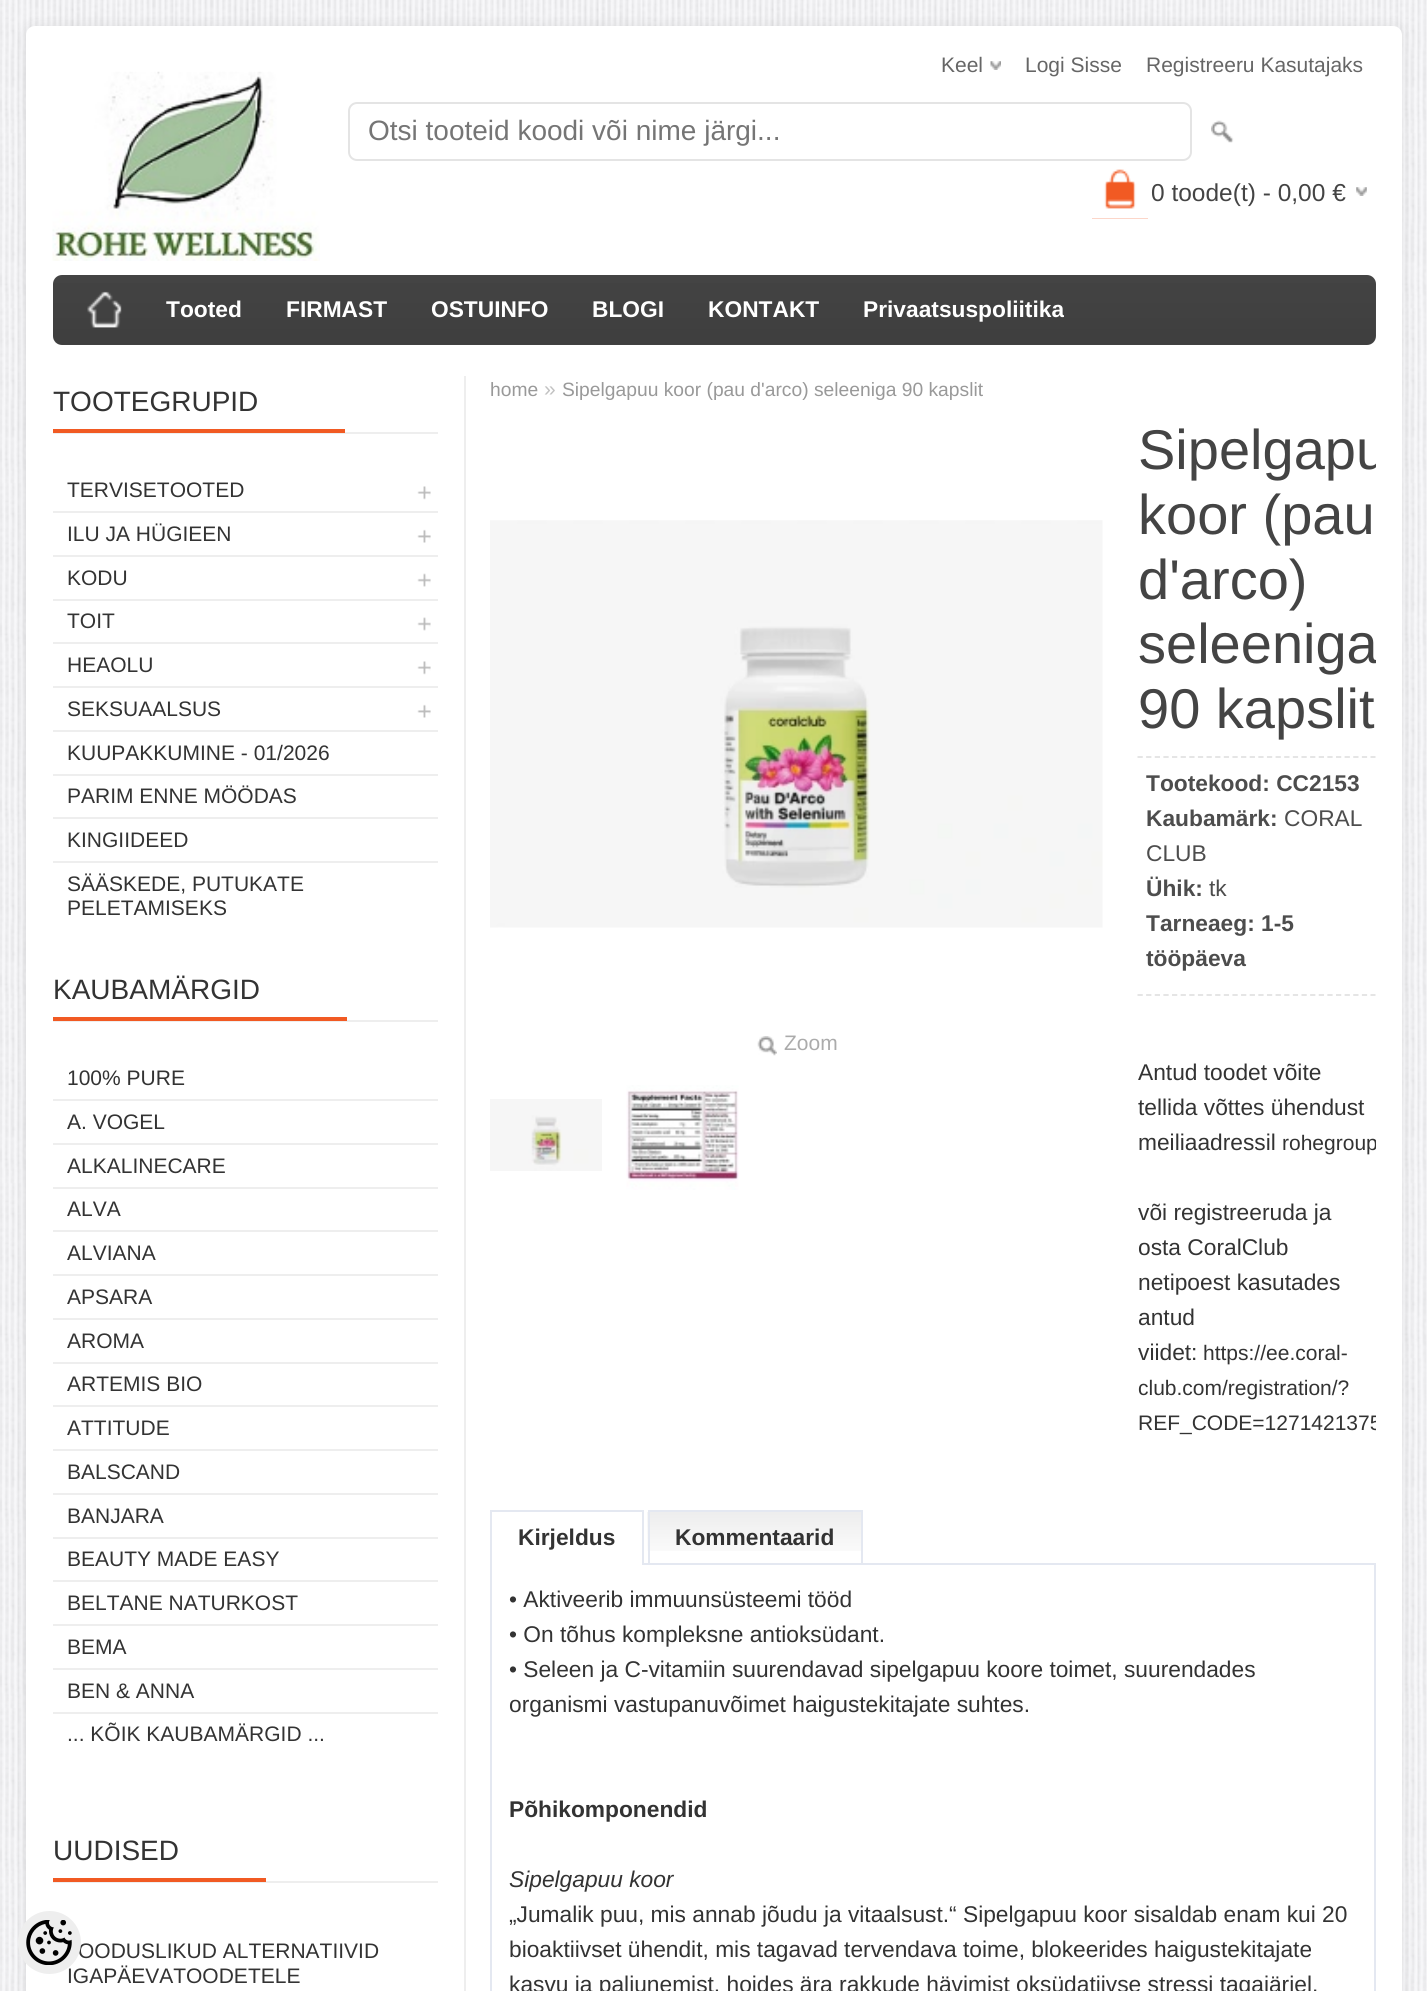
import math
import cairo

surface = cairo.ImageSurface(cairo.FORMAT_RGB24, 1427, 1991)
cr = cairo.Context(surface)
options = cairo.FontOptions()
options.set_hint_metrics(cairo.HINT_METRICS_OFF)
options.set_hint_style(cairo.HINT_STYLE_NONE)
cr.set_font_options(options)
cr.set_miter_limit(4)


def rgb(code):
    cr.set_source_rgb(*(v / 255 for v in bytes.fromhex(code[-6:])))


def rrect(x, y, w, h, r):
    cr.new_sub_path()
    for i, (u, v) in enumerate([(x + w - r, y + h - r), (x + r, y + h - r), (x + r, y + r), (x + w - r, y + r)]):
        cr.arc(u, v, r, i * math.pi / 2, (i + 1) * math.pi / 2)
    cr.close_path()


def soft_shadow(x, y, w, h, r, blur, alpha):
    cr.push_group_with_content(cairo.CONTENT_ALPHA)
    cr.set_operator(cairo.OPERATOR_SOURCE)
    for i in range(15, -16, -2):
        e = blur * i / 6
        if min(w, h) + 2 * e > 0:
            cr.set_source_rgba(0, 0, 0, alpha * math.erfc((i - 1) / 8.5) / 2)
            rrect(x - e, y - e, w + 2 * e, h + 2 * e, max(0, min(r + e + blur * .6, min(w, h) / 2 + e)))
            cr.fill()
    cr.mask(cr.pop_group())


def image(path, x, y, w, h):
    cr.save()
    cr.set_source_surface(cairo.ImageSurface.create_from_png(path), x, y)
    cr.rectangle(x, y, w, h)
    cr.fill()
    cr.restore()


rgb("#f8f8fa")
cr.paint()
image("img/1.png", 0, 0, 1427, 1991)
rgb("#000000")
soft_shadow(26, 26, 1376, 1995, 9, 7, 0.08)
rgb("#ffffff")
cr.new_path()
cr.move_to(35, 26)
cr.line_to(1393, 26)
cr.curve_to(1398, 26, 1402, 30, 1402, 35)
cr.line_to(1402, 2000)
cr.line_to(26, 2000)
cr.line_to(26, 35)
cr.curve_to(26, 30, 30, 26, 35, 26)
cr.close_path()
cr.fill()
image("img/3.png", 990, 61, 11, 9)
image("img/4.png", 52, 71, 268, 190)
rrect(349, 103, 842, 57, 8)
rgb("#e4e4e4")
cr.stroke()
image("img/5.png", 1211, 120, 23, 23)
rgb("#f15a23")
cr.rectangle(1092, 169, 56, 50)
cr.fill()
image("img/6.png", 1092, 163, 56, 56)
image("img/7.png", 1356, 187, 11, 9)
rgb("#444444")
rrect(53, 275, 1323, 70, 9)
cr.fill()
image("img/8.png", 53, 283, 1322, 62)
image("img/9.png", 87, 291, 35, 37)
for x, y, w, h, color in [
    (464, 376, 2, 1615, "#eeeeee"),
    (53, 432, 385, 2, "#eeeeee"),
    (53, 429, 292, 4, "#f15a23"),
]:
    rgb(color)
    cr.rectangle(x, y, w, h)
    cr.fill()
image("img/10.png", 417, 486, 14, 14)
rgb("#eeeeee")
cr.rectangle(53, 511, 385, 2)
cr.fill()
image("img/11.png", 417, 529, 14, 14)
cr.rectangle(53, 555, 385, 2)
cr.fill()
image("img/12.png", 417, 573, 14, 14)
cr.rectangle(53, 599, 385, 2)
cr.fill()
image("img/13.png", 417, 617, 14, 14)
cr.rectangle(53, 642, 385, 2)
cr.fill()
image("img/10.png", 417, 661, 14, 14)
cr.rectangle(53, 686, 385, 2)
cr.fill()
image("img/11.png", 417, 704, 14, 14)
for x, y, w, h, color in [
    (53, 730, 385, 2, "#eeeeee"),
    (53, 774, 385, 2, "#eeeeee"),
    (53, 817, 385, 2, "#eeeeee"),
    (53, 861, 385, 2, "#eeeeee"),
    (53, 1020, 385, 2, "#eeeeee"),
    (53, 1017, 294, 4, "#f15a23"),
    (53, 1099, 385, 2, "#eeeeee"),
    (53, 1143, 385, 2, "#eeeeee"),
    (53, 1187, 385, 2, "#eeeeee"),
    (53, 1230, 385, 2, "#eeeeee"),
    (53, 1274, 385, 2, "#eeeeee"),
    (53, 1318, 385, 2, "#eeeeee"),
    (53, 1362, 385, 2, "#eeeeee"),
    (53, 1405, 385, 2, "#eeeeee"),
    (53, 1449, 385, 2, "#eeeeee"),
    (53, 1493, 385, 2, "#eeeeee"),
    (53, 1537, 385, 2, "#eeeeee"),
    (53, 1580, 385, 2, "#eeeeee"),
    (53, 1624, 385, 2, "#eeeeee"),
    (53, 1668, 385, 2, "#eeeeee"),
    (53, 1712, 385, 2, "#eeeeee"),
    (53, 1881, 385, 2, "#eeeeee"),
    (53, 1878, 213, 4, "#f15a23"),
]:
    rgb(color)
    cr.rectangle(x, y, w, h)
    cr.fill()
image("img/14.png", 490, 520, 613, 408)
image("img/15.png", 757, 1036, 20, 20)
image("img/16.png", 490, 1099, 112, 72)
image("img/17.png", 626, 1085, 113, 105)
cr.new_path()
cr.move_to(1137.5, 757)
cr.line_to(1375.5, 757)
rgb("#e2e2e2")
cr.set_line_width(1.8)
cr.set_dash([5.25, 3.38])
cr.stroke()
cr.new_path()
cr.move_to(1137.5, 995)
cr.line_to(1375.5, 995)
cr.stroke()
for x, y, w, h, color in [
    (644, 1563, 732, 2, "#e4e8f1"),
    (490, 1510, 154, 2, "#e4e8f1"),
    (642, 1510, 2, 55, "#e4e8f1"),
    (490, 1510, 2, 481, "#e4e8f1"),
]:
    rgb(color)
    cr.rectangle(x, y, w, h)
    cr.fill()
image("img/18.png", 647, 1512, 214, 39)
for x, y, w, h, color in [
    (648, 1510, 215, 2, "#e4e8f1"),
    (861, 1510, 2, 53, "#e4e8f1"),
    (648, 1510, 2, 53, "#e4e8f1"),
    (1374, 1565, 2, 426, "#e4e8f1"),
]:
    rgb(color)
    cr.rectangle(x, y, w, h)
    cr.fill()
cr.select_font_face("Liberation Sans")
cr.set_font_size(21)
rgb("#666666")
for x, y, s in [
    (941, 72, "Keel"),
    (1025, 72, "Logi Sisse"),
    (1146, 72, "Registreeru Kasutajaks"),
]:
    cr.move_to(x, y)
    cr.show_text(s)
cr.set_font_size(28)
rgb("#757575")
cr.move_to(368, 140)
cr.show_text("Otsi tooteid koodi või nime järgi...")
cr.set_font_size(24.5)
rgb("#444444")
cr.move_to(1151, 201)
cr.show_text("0 toode(t) - 0,00 €")
cr.select_font_face("Liberation Sans", cairo.FONT_SLANT_NORMAL, cairo.FONT_WEIGHT_BOLD)
cr.set_font_size(22.75)
rgb("#ffffff")
for x, y, s in [
    (166, 317, "Tooted"),
    (286, 317, "FIRMAST"),
    (431, 317, "OSTUINFO"),
    (592, 317, "BLOGI"),
    (708, 317, "KONTAKT"),
    (863, 317, "Privaatsuspoliitika"),
]:
    cr.move_to(x, y)
    cr.show_text(s)
cr.select_font_face("Liberation Sans")
cr.set_font_size(28)
rgb("#333333")
cr.move_to(53, 411)
cr.show_text("TOOTEGRUPID")
cr.set_font_size(21)
for x, y, s in [
    (67, 497, "TERVISETOOTED"),
    (67, 541, "ILU JA HÜGIEEN"),
    (67, 585, "KODU"),
    (67, 628, "TOIT"),
    (67, 672, "HEAOLU"),
    (67, 716, "SEKSUAALSUS"),
    (67, 760, "KUUPAKKUMINE - 01/2026"),
    (67, 803, "PARIM ENNE MÖÖDAS"),
    (67, 847, "KINGIIDEED"),
    (67, 891, "SÄÄSKEDE, PUTUKATE"),
    (67, 915, "PELETAMISEKS"),
]:
    cr.move_to(x, y)
    cr.show_text(s)
cr.set_font_size(28)
cr.move_to(53, 999)
cr.show_text("KAUBAMÄRGID")
cr.set_font_size(21)
for x, y, s in [
    (67, 1085, "100% PURE"),
    (67, 1129, "A. VOGEL"),
    (67, 1173, "ALKALINECARE"),
    (67, 1216, "ALVA"),
    (67, 1260, "ALVIANA"),
    (67, 1304, "APSARA"),
    (67, 1348, "AROMA"),
    (67, 1391, "ARTEMIS BIO"),
    (67, 1435, "ATTITUDE"),
    (67, 1479, "BALSCAND"),
    (67, 1523, "BANJARA"),
    (67, 1566, "BEAUTY MADE EASY"),
    (67, 1610, "BELTANE NATURKOST"),
    (67, 1654, "BEMA"),
    (67, 1698, "BEN & ANNA"),
    (67, 1741, "... KÕIK KAUBAMÄRGID ..."),
]:
    cr.move_to(x, y)
    cr.show_text(s)
cr.set_font_size(28)
cr.move_to(53, 1860)
cr.show_text("UUDISED")
cr.set_font_size(21)
cr.move_to(78, 1958)
cr.show_text("OODUSLIKUD ALTERNATIIVID")
cr.move_to(67, 1983)
cr.show_text("IGAPÄEVATOODETELE")
rgb("#eeeeee")
cr.new_path()
cr.arc(49.5, 1942.5, 31.5, 0, 2 * math.pi)
cr.fill()
image("img/2.png", 26, 1920, 46, 45)
cr.set_font_size(19.25)
rgb("#999999")
cr.move_to(490, 396)
cr.show_text("home")
cr.set_font_size(21)
rgb("#c2c2c2")
cr.move_to(544, 396)
cr.show_text("»")
cr.set_font_size(19.25)
rgb("#999999")
cr.move_to(562, 396)
cr.show_text("Sipelgapuu koor (pau d'arco) seleeniga 90 kapslit")
cr.set_font_size(21)
rgb("#ababab")
cr.move_to(784, 1050)
cr.show_text("Zoom")
cr.save()
cr.rectangle(490, 418, 886, 1057)
cr.clip()
cr.set_font_size(56)
rgb("#444444")
cr.move_to(1138, 469)
cr.show_text("Sipelgapu")
cr.restore()
cr.set_font_size(56)
rgb("#444444")
cr.move_to(1138, 534)
cr.show_text("koor (pau")
cr.move_to(1138, 599)
cr.show_text("d'arco)")
cr.save()
cr.rectangle(490, 418, 886, 1057)
cr.clip()
cr.move_to(1138, 663)
cr.show_text("seleeniga")
cr.restore()
cr.move_to(1138, 728)
cr.show_text("90 kapslit")
cr.select_font_face("Liberation Sans", cairo.FONT_SLANT_NORMAL, cairo.FONT_WEIGHT_BOLD)
cr.set_font_size(22.75)
rgb("#4d4d4d")
cr.move_to(1146, 791)
cr.show_text("Tootekood: CC2153")
cr.move_to(1146, 826)
cr.show_text("Kaubamärk:")
cr.select_font_face("Liberation Sans")
cr.move_to(1284, 826)
cr.show_text("CORAL")
cr.move_to(1146, 861)
cr.show_text("CLUB")
cr.select_font_face("Liberation Sans", cairo.FONT_SLANT_NORMAL, cairo.FONT_WEIGHT_BOLD)
cr.move_to(1146, 896)
cr.show_text("Ühik:")
cr.select_font_face("Liberation Sans")
cr.move_to(1209, 896)
cr.show_text("tk")
cr.select_font_face("Liberation Sans", cairo.FONT_SLANT_NORMAL, cairo.FONT_WEIGHT_BOLD)
cr.move_to(1146, 931)
cr.show_text("Tarneaeg: 1-5")
cr.move_to(1146, 966)
cr.show_text("tööpäeva")
cr.select_font_face("Liberation Sans")
rgb("#333333")
for x, y, s in [
    (1138, 1080, "Antud toodet võite"),
    (1138, 1115, "tellida võttes ühendust"),
    (1138, 1150, "meiliaadressil"),
]:
    cr.move_to(x, y)
    cr.show_text(s)
cr.save()
cr.rectangle(490, 418, 886, 1057)
cr.clip()
cr.set_font_size(21)
cr.move_to(1282, 1150)
cr.show_text("rohegroup")
cr.restore()
for x, y, s in [
    (1138, 1220, "või registreeruda ja"),
    (1138, 1255, "osta CoralClub"),
    (1138, 1290, "netipoest kasutades"),
    (1138, 1325, "antud"),
    (1138, 1360, "viidet:"),
]:
    cr.move_to(x, y)
    cr.show_text(s)
cr.set_font_size(21)
cr.move_to(1203, 1360)
cr.show_text("https://ee.coral-")
cr.move_to(1138, 1395)
cr.show_text("club.com/registration/?")
cr.save()
cr.rectangle(490, 418, 886, 1057)
cr.clip()
cr.move_to(1138, 1430)
cr.show_text("REF_CODE=1271421375")
cr.restore()
cr.select_font_face("Liberation Sans", cairo.FONT_SLANT_NORMAL, cairo.FONT_WEIGHT_BOLD)
cr.set_font_size(22.75)
cr.move_to(518, 1545)
cr.show_text("Kirjeldus")
cr.move_to(675, 1545)
cr.show_text("Kommentaarid")
cr.select_font_face("Liberation Sans")
for x, y, s in [
    (509, 1607, "• Aktiveerib immuunsüsteemi tööd"),
    (509, 1642, "• On tõhus kompleksne antioksüdant."),
    (509, 1677, "• Seleen ja C-vitamiin suurendavad sipelgapuu koore toimet, suurendades"),
    (509, 1712, "organismi vastupanuvõimet haigustekitajate suhtes."),
]:
    cr.move_to(x, y)
    cr.show_text(s)
cr.select_font_face("Liberation Sans", cairo.FONT_SLANT_NORMAL, cairo.FONT_WEIGHT_BOLD)
cr.move_to(509, 1817)
cr.show_text("Põhikomponendid")
cr.select_font_face("Liberation Sans", cairo.FONT_SLANT_ITALIC)
cr.move_to(509, 1887)
cr.show_text("Sipelgapuu koor")
cr.select_font_face("Liberation Sans")
for x, y, s in [
    (509, 1922, "„Jumalik puu, mis annab jõudu ja vitaalsust.“ Sipelgapuu koor sisaldab enam kui 20"),
    (509, 1957, "bioaktiivset ühendit, mis tagavad tervendava toime, blokeerides haigustekitajate"),
    (509, 1992, "kasvu ja paljunemist, hoides ära rakkude hävimist oksüdatiivse stressi tagajärjel."),
]:
    cr.move_to(x, y)
    cr.show_text(s)
surface.write_to_png("page.png")
